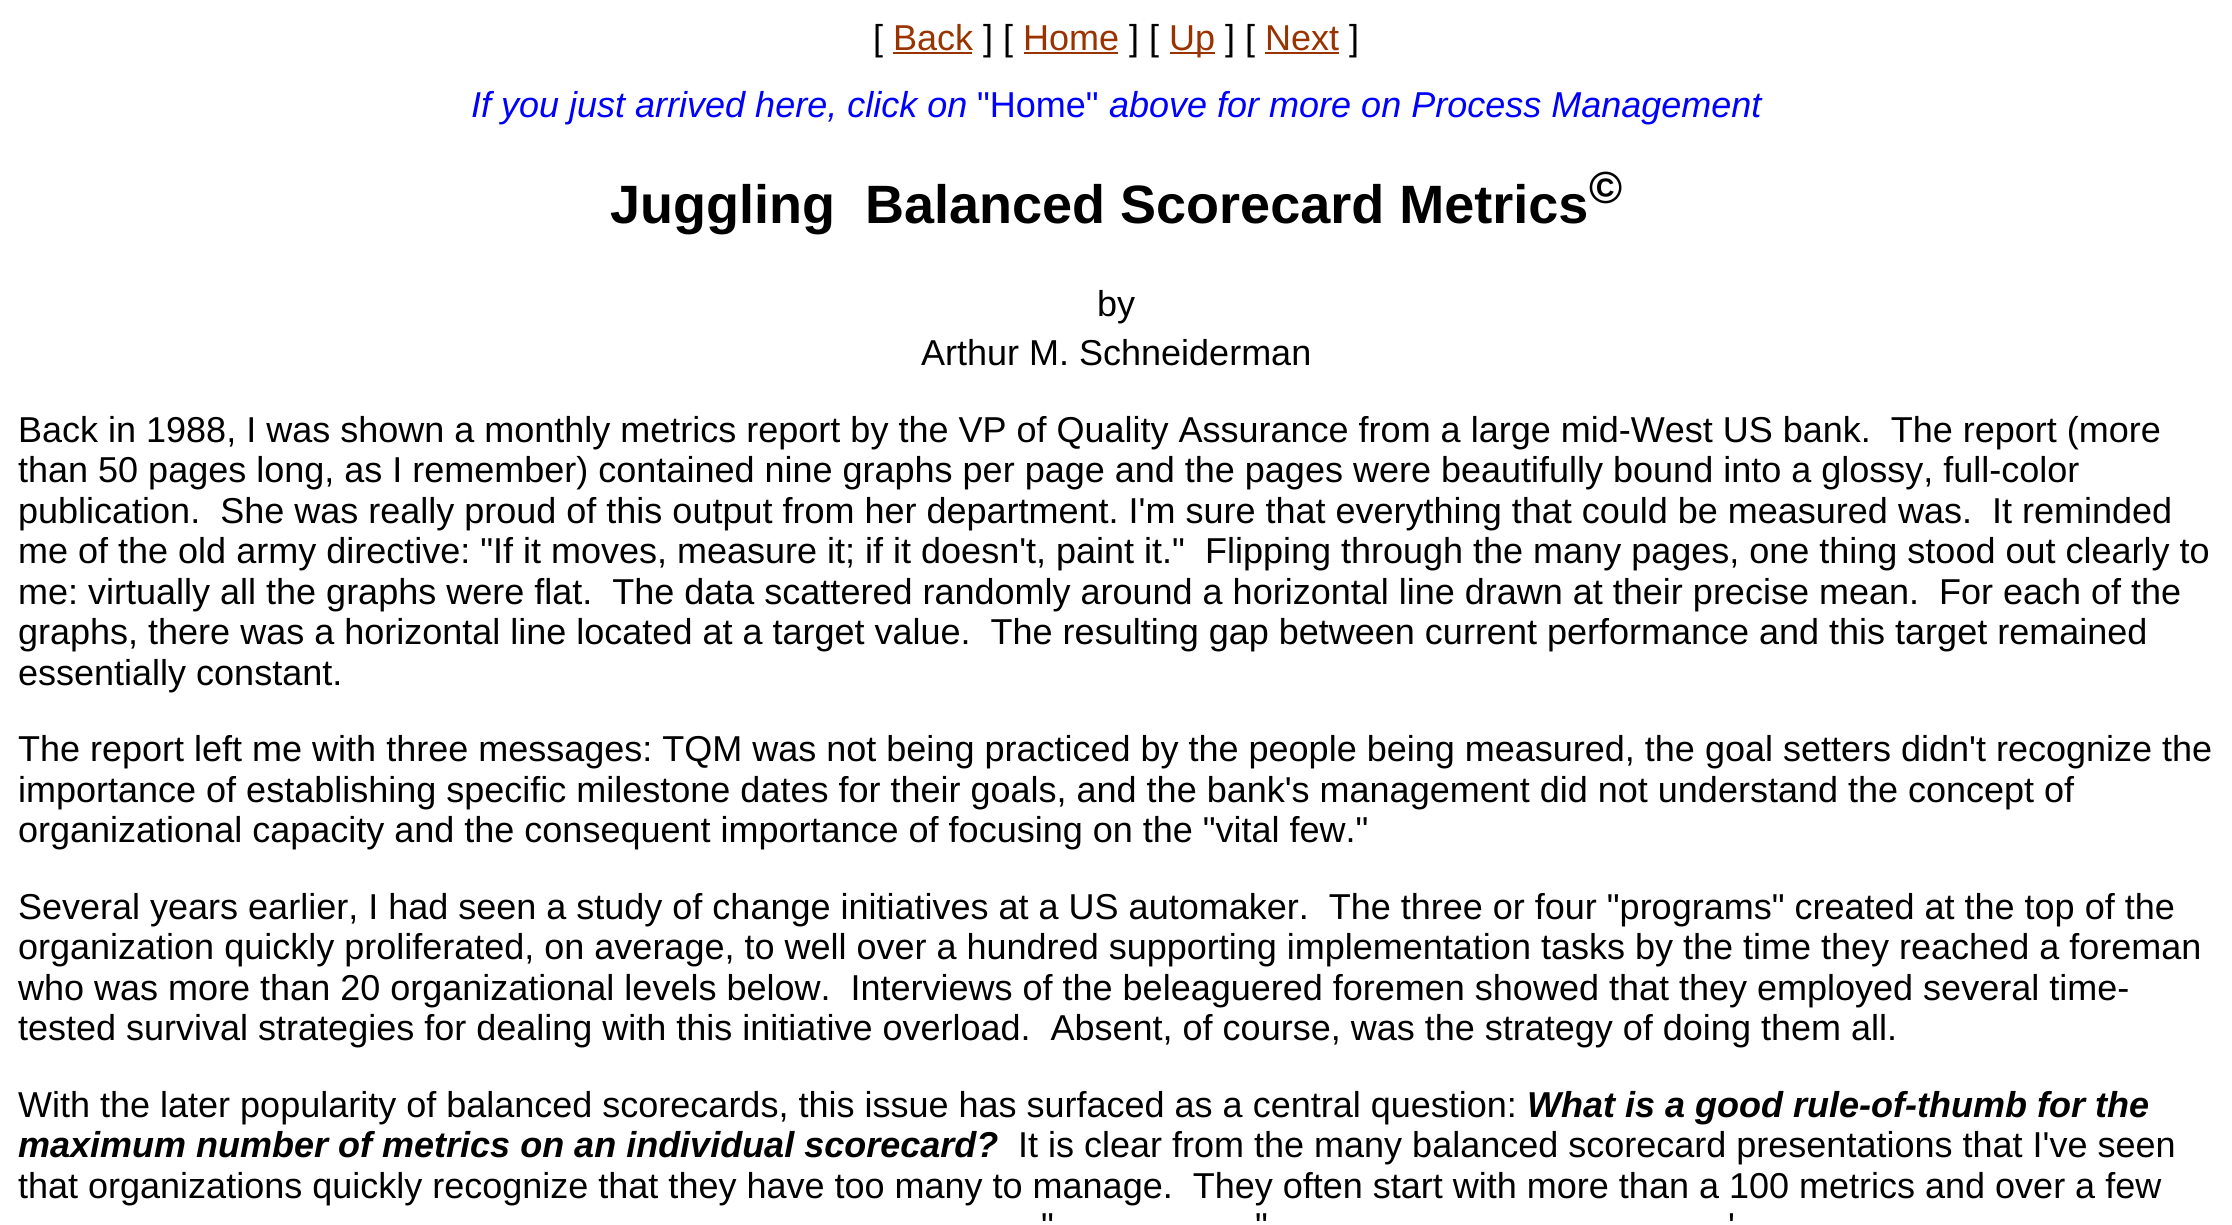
import math
import cairo

surface = cairo.ImageSurface(cairo.FORMAT_RGB24, 2232, 1225)
cr = cairo.Context(surface)
options = cairo.FontOptions()
options.set_hint_metrics(cairo.HINT_METRICS_OFF)
options.set_hint_style(cairo.HINT_STYLE_NONE)
cr.set_font_options(options)
cr.set_miter_limit(4)


def rgb(code):
    cr.set_source_rgb(*(v / 255 for v in bytes.fromhex(code[-6:])))


rgb("#ffffff")
cr.paint()
for x, y, w, h, color in [
    (893, 52, 79, 2, "#993300"),
    (1024, 52, 94, 2, "#993300"),
    (1170, 52, 45, 2, "#993300"),
    (1265, 52, 74, 2, "#993300"),
]:
    rgb(color)
    cr.rectangle(x, y, w, h)
    cr.fill()
cr.select_font_face("Liberation Sans")
cr.set_font_size(36)
rgb("#000000")
cr.move_to(873, 50)
cr.show_text("[")
rgb("#993300")
cr.move_to(893, 50)
cr.show_text("Back")
rgb("#000000")
cr.move_to(983, 50)
cr.show_text("] [")
rgb("#993300")
cr.move_to(1023, 50)
cr.show_text("Home")
rgb("#000000")
cr.move_to(1129, 50)
cr.show_text("] [")
rgb("#993300")
cr.move_to(1169, 50)
cr.show_text("Up")
rgb("#000000")
cr.move_to(1225, 50)
cr.show_text("] [")
rgb("#993300")
cr.move_to(1265, 50)
cr.show_text("Next")
rgb("#000000")
cr.move_to(1349, 50)
cr.show_text("]")
cr.select_font_face("Liberation Sans", cairo.FONT_SLANT_ITALIC)
rgb("#0000ff")
cr.move_to(471, 117)
cr.show_text("If you just arrived here, click on")
cr.select_font_face("Liberation Sans")
cr.move_to(977, 117)
cr.show_text("\"Home\"")
cr.select_font_face("Liberation Sans", cairo.FONT_SLANT_ITALIC)
cr.move_to(1109, 117)
cr.show_text("above for more on Process Management")
cr.select_font_face("Liberation Sans", cairo.FONT_SLANT_NORMAL, cairo.FONT_WEIGHT_BOLD)
cr.set_font_size(54)
rgb("#000000")
cr.move_to(610, 223)
cr.show_text("Juggling  Balanced Scorecard Metrics")
cr.set_font_size(45)
cr.move_to(1589, 203)
cr.show_text("©")
cr.select_font_face("Liberation Sans")
cr.set_font_size(36)
for x, y, s in [
    (1097, 316, "by"),
    (921, 365, "Arthur M. Schneiderman"),
    (18, 442, "Back in 1988, I was shown a monthly metrics report by the VP of Quality Assurance from a large mid-West US bank.  The report (more"),
    (18, 482, "than 50 pages long, as I remember) contained nine graphs per page and the pages were beautifully bound into a glossy, full-color"),
    (18, 523, "publication.  She was really proud of this output from her department. I'm sure that everything that could be measured was.  It reminded"),
    (18, 563, "me of the old army directive: \"If it moves, measure it; if it doesn't, paint it.\"  Flipping through the many pages, one thing stood out clearly to"),
    (18, 604, "me: virtually all the graphs were flat.  The data scattered randomly around a horizontal line drawn at their precise mean.  For each of the"),
    (18, 644, "graphs, there was a horizontal line located at a target value.  The resulting gap between current performance and this target remained"),
    (18, 685, "essentially constant."),
    (18, 761, "The report left me with three messages: TQM was not being practiced by the people being measured, the goal setters didn't recognize the"),
    (18, 802, "importance of establishing specific milestone dates for their goals, and the bank's management did not understand the concept of"),
    (18, 842, "organizational capacity and the consequent importance of focusing on the \"vital few.\""),
    (18, 919, "Several years earlier, I had seen a study of change initiatives at a US automaker.  The three or four \"programs\" created at the top of the"),
    (18, 959, "organization quickly proliferated, on average, to well over a hundred supporting implementation tasks by the time they reached a foreman"),
    (18, 1000, "who was more than 20 organizational levels below.  Interviews of the beleaguered foremen showed that they employed several time-"),
    (18, 1040, "tested survival strategies for dealing with this initiative overload.  Absent, of course, was the strategy of doing them all."),
    (18, 1117, "With the later popularity of balanced scorecards, this issue has surfaced as a central question:"),
]:
    cr.move_to(x, y)
    cr.show_text(s)
cr.select_font_face("Liberation Sans", cairo.FONT_SLANT_ITALIC, cairo.FONT_WEIGHT_BOLD)
cr.move_to(1527, 1117)
cr.show_text("What is a good rule-of-thumb for the")
cr.move_to(18, 1157)
cr.show_text("maximum number of metrics on an individual scorecard?")
cr.select_font_face("Liberation Sans")
for x, y, s in [
    (1018, 1157, "It is clear from the many balanced scorecard presentations that I've seen"),
    (18, 1198, "that organizations quickly recognize that they have too many to manage.  They often start with more than a 100 metrics and over a few"),
    (1041, 1238, "\""),
    (1255, 1238, "\""),
    (1728, 1238, "'"),
]:
    cr.move_to(x, y)
    cr.show_text(s)
surface.write_to_png("page.png")
